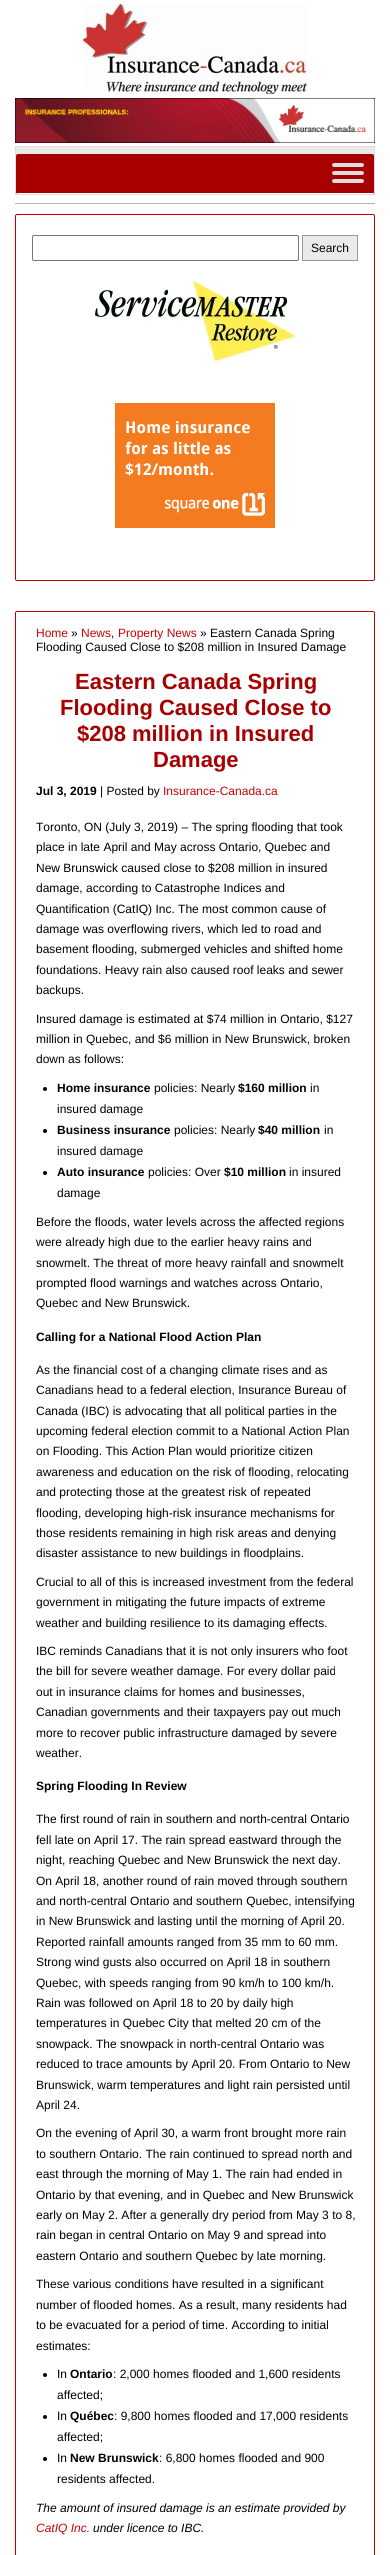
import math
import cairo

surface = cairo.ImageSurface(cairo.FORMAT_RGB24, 390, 2555)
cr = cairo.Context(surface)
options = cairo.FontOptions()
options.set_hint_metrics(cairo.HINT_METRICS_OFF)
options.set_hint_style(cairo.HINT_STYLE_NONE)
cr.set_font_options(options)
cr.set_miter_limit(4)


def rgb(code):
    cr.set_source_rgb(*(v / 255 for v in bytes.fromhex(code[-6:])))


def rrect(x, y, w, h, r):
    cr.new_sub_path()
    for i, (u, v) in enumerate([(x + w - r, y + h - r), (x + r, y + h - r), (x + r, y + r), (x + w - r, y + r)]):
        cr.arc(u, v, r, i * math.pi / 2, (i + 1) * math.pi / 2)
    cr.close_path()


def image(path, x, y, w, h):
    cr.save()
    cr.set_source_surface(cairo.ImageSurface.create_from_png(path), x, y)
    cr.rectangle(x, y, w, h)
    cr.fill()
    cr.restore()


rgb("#ffffff")
cr.paint()
image("img/1.png", 83, 4, 224, 90)
image("img/2.png", 15, 98, 360, 45)
rgb("#eaeaea")
cr.rectangle(15.5, 146.5, 359, 48)
cr.fill_preserve()
rgb("#dddddd")
cr.set_line_width(1)
cr.stroke()
rgb("#a80000")
rrect(16, 154, 358, 40, 2)
cr.fill()
rgb("#ffffff")
cr.rectangle(17, 193, 356, 1)
cr.fill()
rgb("#dddddd")
rrect(332, 163, 32, 4, 2)
cr.fill()
rrect(332, 171, 32, 4, 2)
cr.fill()
rrect(332, 179, 32, 4, 2)
cr.fill()
rgb("#b4b4b4")
cr.rectangle(15, 203, 360, 1)
cr.fill()
rrect(15.5, 214.5, 359, 366, 1.5)
rgb("#c00000")
cr.stroke()
rrect(32.5, 235.5, 266, 25, 1.5)
rgb("#767676")
cr.stroke()
rgb("#eaeaea")
cr.rectangle(302.5, 235.5, 55, 25)
cr.fill_preserve()
rgb("#999999")
cr.stroke()
image("img/3.png", 95, 281, 201, 80)
image("img/4.png", 115, 403, 160, 125)
rrect(15.5, 611.5, 359, 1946, 1.5)
rgb("#c00000")
cr.stroke()
rgb("#000000")
cr.arc(45, 1089, 2, 0, 2 * math.pi)
cr.fill()
cr.arc(45, 1131, 2, 0, 2 * math.pi)
cr.fill()
cr.arc(45, 1173, 2, 0, 2 * math.pi)
cr.fill()
cr.arc(45, 2375, 2, 0, 2 * math.pi)
cr.fill()
cr.arc(45, 2417, 2, 0, 2 * math.pi)
cr.fill()
cr.arc(45, 2459, 2, 0, 2 * math.pi)
cr.fill()
cr.select_font_face("Liberation Sans")
cr.set_font_size(12)
cr.move_to(311, 252)
cr.show_text("Search")
rgb("#c70303")
cr.move_to(36, 637)
cr.show_text("Home")
rgb("#000000")
cr.move_to(71, 637)
cr.show_text("»")
rgb("#c70303")
cr.move_to(81, 637)
cr.show_text("News")
rgb("#000000")
cr.move_to(111, 637)
cr.show_text(",")
rgb("#c70303")
cr.move_to(118, 637)
cr.show_text("Property News")
rgb("#000000")
cr.move_to(200, 637)
cr.show_text("» Eastern Canada Spring")
cr.move_to(36, 651)
cr.show_text("Flooding Caused Close to $208 million in Insured Damage")
cr.select_font_face("Liberation Sans", cairo.FONT_SLANT_NORMAL, cairo.FONT_WEIGHT_BOLD)
cr.set_font_size(22)
rgb("#a80000")
for x, y, s in [
    (75, 689, "Eastern Canada Spring"),
    (60, 715, "Flooding Caused Close to"),
    (77, 741, "$208 million in Insured"),
    (153, 767, "Damage"),
]:
    cr.move_to(x, y)
    cr.show_text(s)
cr.set_font_size(12)
rgb("#000000")
cr.move_to(36, 795)
cr.show_text("Jul 3, 2019")
cr.select_font_face("Liberation Sans")
cr.move_to(100, 795)
cr.show_text("| Posted by")
rgb("#c70303")
cr.move_to(163, 795)
cr.show_text("Insurance-Canada.ca")
rgb("#000000")
for x, y, s in [
    (36, 831, "Toronto, ON (July 3, 2019) – The spring flooding that took"),
    (36, 851, "place in late April and May across Ontario, Quebec and"),
    (36, 872, "New Brunswick caused close to $208 million in insured"),
    (36, 892, "damage, according to Catastrophe Indices and"),
    (36, 913, "Quantification (CatIQ) Inc. The most common cause of"),
    (36, 933, "damage was overflowing rivers, which led to road and"),
    (36, 953, "basement flooding, submerged vehicles and shifted home"),
    (36, 974, "foundations. Heavy rain also caused roof leaks and sewer"),
    (36, 994, "backups."),
    (36, 1023, "Insured damage is estimated at $74 million in Ontario, $127"),
    (36, 1043, "million in Quebec, and $6 million in New Brunswick, broken"),
    (36, 1063, "down as follows:"),
]:
    cr.move_to(x, y)
    cr.show_text(s)
cr.select_font_face("Liberation Sans", cairo.FONT_SLANT_NORMAL, cairo.FONT_WEIGHT_BOLD)
cr.move_to(57, 1092)
cr.show_text("Home insurance")
cr.select_font_face("Liberation Sans")
cr.move_to(154, 1092)
cr.show_text("policies: Nearly")
cr.select_font_face("Liberation Sans", cairo.FONT_SLANT_NORMAL, cairo.FONT_WEIGHT_BOLD)
cr.move_to(238, 1092)
cr.show_text("$160 million")
cr.select_font_face("Liberation Sans")
cr.move_to(310, 1092)
cr.show_text("in")
cr.move_to(57, 1113)
cr.show_text("insured damage")
cr.select_font_face("Liberation Sans", cairo.FONT_SLANT_NORMAL, cairo.FONT_WEIGHT_BOLD)
cr.move_to(57, 1134)
cr.show_text("Business insurance")
cr.select_font_face("Liberation Sans")
cr.move_to(174, 1134)
cr.show_text("policies: Nearly")
cr.select_font_face("Liberation Sans", cairo.FONT_SLANT_NORMAL, cairo.FONT_WEIGHT_BOLD)
cr.move_to(258, 1134)
cr.show_text("$40 million")
cr.select_font_face("Liberation Sans")
cr.move_to(324, 1134)
cr.show_text("in")
cr.move_to(57, 1155)
cr.show_text("insured damage")
cr.select_font_face("Liberation Sans", cairo.FONT_SLANT_NORMAL, cairo.FONT_WEIGHT_BOLD)
cr.move_to(57, 1176)
cr.show_text("Auto insurance")
cr.select_font_face("Liberation Sans")
cr.move_to(148, 1176)
cr.show_text("policies: Over")
cr.select_font_face("Liberation Sans", cairo.FONT_SLANT_NORMAL, cairo.FONT_WEIGHT_BOLD)
cr.move_to(224, 1176)
cr.show_text("$10 million")
cr.select_font_face("Liberation Sans")
for x, y, s in [
    (289, 1176, "in insured"),
    (57, 1197, "damage"),
    (36, 1226, "Before the floods, water levels across the affected regions"),
    (36, 1246, "were already high due to the earlier heavy rains and"),
    (36, 1267, "snowmelt. The threat of more heavy rainfall and snowmelt"),
    (36, 1287, "prompted flood warnings and watches across Ontario,"),
    (36, 1307, "Quebec and New Brunswick."),
]:
    cr.move_to(x, y)
    cr.show_text(s)
cr.select_font_face("Liberation Sans", cairo.FONT_SLANT_NORMAL, cairo.FONT_WEIGHT_BOLD)
cr.move_to(36, 1341)
cr.show_text("Calling for a National Flood Action Plan")
cr.select_font_face("Liberation Sans")
for x, y, s in [
    (36, 1374, "As the financial cost of a changing climate rises and as"),
    (36, 1394, "Canadians head to a federal election, Insurance Bureau of"),
    (36, 1415, "Canada (IBC) is advocating that all political parties in the"),
    (36, 1435, "upcoming federal election commit to a National Action Plan"),
    (36, 1455, "on Flooding. This Action Plan would prioritize citizen"),
    (36, 1476, "awareness and education on the risk of flooding, relocating"),
    (36, 1496, "and protecting those at the greatest risk of repeated"),
    (36, 1517, "flooding, developing high-risk insurance mechanisms for"),
    (36, 1537, "those residents remaining in high risk areas and denying"),
    (36, 1557, "disaster assistance to new buildings in floodplains."),
    (36, 1586, "Crucial to all of this is increased investment from the federal"),
    (36, 1606, "government in mitigating the future impacts of extreme"),
    (36, 1627, "weather and building resilience to its damaging effects."),
    (36, 1655, "IBC reminds Canadians that it is not only insurers who foot"),
    (36, 1675, "the bill for severe weather damage. For every dollar paid"),
    (36, 1696, "out in insurance claims for homes and businesses,"),
    (36, 1716, "Canadian governments and their taxpayers pay out much"),
    (36, 1737, "more to recover public infrastructure damaged by severe"),
    (36, 1757, "weather."),
]:
    cr.move_to(x, y)
    cr.show_text(s)
cr.select_font_face("Liberation Sans", cairo.FONT_SLANT_NORMAL, cairo.FONT_WEIGHT_BOLD)
cr.move_to(36, 1790)
cr.show_text("Spring Flooding In Review")
cr.select_font_face("Liberation Sans")
for x, y, s in [
    (36, 1823, "The first round of rain in southern and north-central Ontario"),
    (36, 1844, "fell late on April 17. The rain spread eastward through the"),
    (36, 1864, "night, reaching Quebec and New Brunswick the next day."),
    (36, 1885, "On April 18, another round of rain moved through southern"),
    (36, 1905, "and north-central Ontario and southern Quebec, intensifying"),
    (36, 1925, "in New Brunswick and lasting until the morning of April 20."),
    (36, 1946, "Reported rainfall amounts ranged from 35 mm to 60 mm."),
    (36, 1966, "Strong wind gusts also occurred on April 18 in southern"),
    (36, 1987, "Quebec, with speeds ranging from 90 km/h to 100 km/h."),
    (36, 2007, "Rain was followed on April 18 to 20 by daily high"),
    (36, 2027, "temperatures in Quebec City that melted 20 cm of the"),
    (36, 2048, "snowpack. The snowpack in north-central Ontario was"),
    (36, 2068, "reduced to trace amounts by April 20. From Ontario to New"),
    (36, 2089, "Brunswick, warm temperatures and light rain persisted until"),
    (36, 2109, "April 24."),
    (36, 2137, "On the evening of April 30, a warm front brought more rain"),
    (36, 2158, "to southern Ontario. The rain continued to spread north and"),
    (36, 2178, "east through the morning of May 1. The rain had ended in"),
    (36, 2199, "Ontario by that evening, and in Quebec and New Brunswick"),
    (36, 2219, "early on May 2. After a generally dry period from May 3 to 8,"),
    (36, 2239, "rain began in central Ontario on May 9 and spread into"),
    (36, 2260, "eastern Ontario and southern Quebec by late morning."),
    (36, 2288, "These various conditions have resulted in a significant"),
    (36, 2309, "number of flooded homes. As a result, many residents had"),
    (36, 2329, "to be evacuated for a period of time. According to initial"),
    (36, 2350, "estimates:"),
    (57, 2378, "In"),
]:
    cr.move_to(x, y)
    cr.show_text(s)
cr.select_font_face("Liberation Sans", cairo.FONT_SLANT_NORMAL, cairo.FONT_WEIGHT_BOLD)
cr.move_to(70, 2378)
cr.show_text("Ontario")
cr.select_font_face("Liberation Sans")
for x, y, s in [
    (113, 2378, ": 2,000 homes flooded and 1,600 residents"),
    (57, 2399, "affected;"),
    (57, 2420, "In"),
]:
    cr.move_to(x, y)
    cr.show_text(s)
cr.select_font_face("Liberation Sans", cairo.FONT_SLANT_NORMAL, cairo.FONT_WEIGHT_BOLD)
cr.move_to(70, 2420)
cr.show_text("Québec")
cr.select_font_face("Liberation Sans")
for x, y, s in [
    (114, 2420, ": 9,800 homes flooded and 17,000 residents"),
    (57, 2441, "affected;"),
    (57, 2462, "In"),
]:
    cr.move_to(x, y)
    cr.show_text(s)
cr.select_font_face("Liberation Sans", cairo.FONT_SLANT_NORMAL, cairo.FONT_WEIGHT_BOLD)
cr.move_to(70, 2462)
cr.show_text("New Brunswick")
cr.select_font_face("Liberation Sans")
cr.move_to(159, 2462)
cr.show_text(": 6,800 homes flooded and 900")
cr.move_to(57, 2483)
cr.show_text("residents affected.")
cr.select_font_face("Liberation Sans", cairo.FONT_SLANT_ITALIC)
cr.move_to(36, 2512)
cr.show_text("The amount of insured damage is an estimate provided by")
rgb("#c70303")
cr.move_to(36, 2532)
cr.show_text("CatIQ Inc.")
rgb("#000000")
cr.move_to(93, 2532)
cr.show_text("under licence to IBC.")
surface.write_to_png("page.png")
